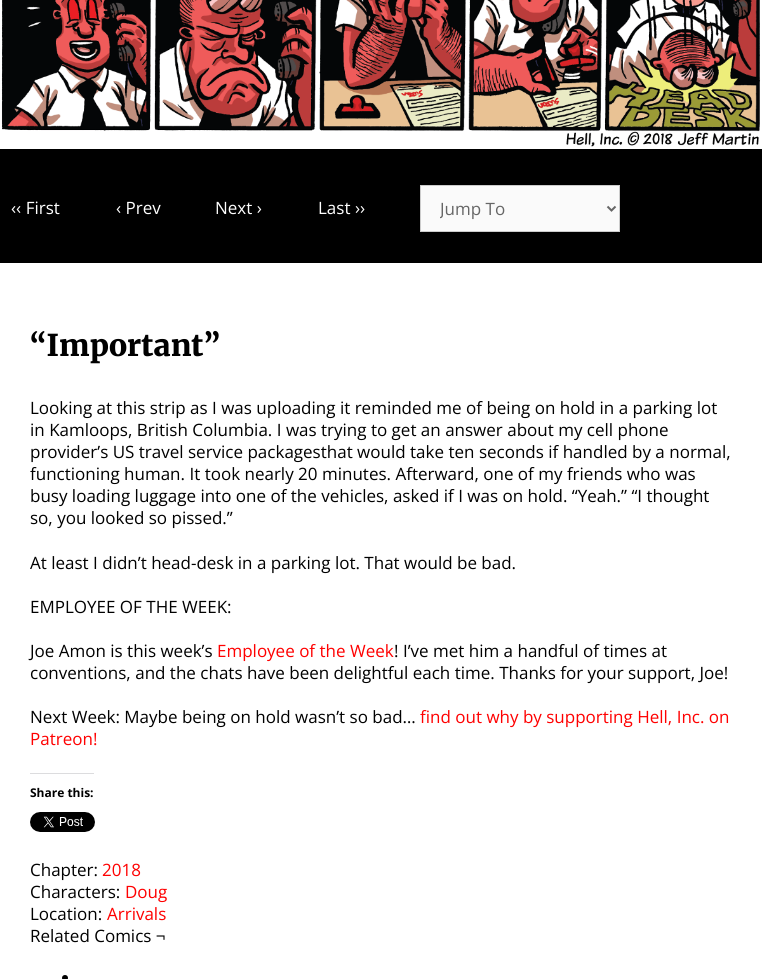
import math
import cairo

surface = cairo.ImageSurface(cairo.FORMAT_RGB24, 762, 979)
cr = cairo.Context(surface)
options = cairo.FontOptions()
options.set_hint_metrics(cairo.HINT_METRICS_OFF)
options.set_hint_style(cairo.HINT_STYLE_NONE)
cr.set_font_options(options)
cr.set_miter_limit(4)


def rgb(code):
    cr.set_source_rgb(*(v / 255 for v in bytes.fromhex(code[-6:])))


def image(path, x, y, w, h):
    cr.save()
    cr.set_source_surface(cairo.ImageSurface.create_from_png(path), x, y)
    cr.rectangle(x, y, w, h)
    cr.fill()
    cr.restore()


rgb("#000000")
cr.paint()
image("img/1.png", 0, 0, 762, 149)
rgb("#fafafa")
cr.rectangle(420.5, 185.5, 199, 46)
cr.fill_preserve()
rgb("#cccccc")
cr.set_line_width(1)
cr.stroke()
cr.new_path()
cr.move_to(607.5, 206.5)
cr.line_to(611.5, 210.5)
cr.line_to(615.5, 206.5)
rgb("#666666")
cr.set_line_width(2)
cr.stroke()
rgb("#ffffff")
cr.rectangle(0, 263, 762, 716)
cr.fill()
rgb("#dcdcde")
cr.rectangle(30, 773, 64, 1)
cr.fill()
image("img/2.png", 30, 812, 65, 20)
rgb("#000000")
cr.arc(65, 978, 3, 0, 2 * math.pi)
cr.fill()
cr.select_font_face("Open Sans")
cr.set_font_size(17)
rgb("#ffffff")
for x, y, s in [
    (11, 214, "‹‹ First"),
    (116, 214, "‹ Prev"),
    (215, 214, "Next ›"),
    (318, 214, "Last ››"),
]:
    cr.move_to(x, y)
    cr.show_text(s)
cr.save()
cr.rectangle(440, 196, 148, 25)
cr.clip()
rgb("#666666")
cr.move_to(440, 215)
cr.show_text("Jump To")
cr.restore()
cr.select_font_face("Merriweather Light")
cr.set_font_size(30)
rgb("#000000")
cr.move_to(30, 356)
cr.show_text("“Important”")
cr.select_font_face("Open Sans")
cr.set_font_size(17)
for x, y, s in [
    (30, 414, "Looking at this strip as I was uploading it reminded me of being on hold in a parking lot"),
    (30, 436, "in Kamloops, British Columbia. I was trying to get an answer about my cell phone"),
    (30, 458, "provider’s US travel service packagesthat would take ten seconds if handled by a normal,"),
    (30, 480, "functioning human. It took nearly 20 minutes. Afterward, one of my friends who was"),
    (30, 502, "busy loading luggage into one of the vehicles, asked if I was on hold. “Yeah.” “I thought"),
    (30, 524, "so, you looked so pissed.”"),
    (30, 569, "At least I didn’t head-desk in a parking lot. That would be bad."),
    (30, 613, "EMPLOYEE OF THE WEEK:"),
    (30, 657, "Joe Amon is this week’s"),
]:
    cr.move_to(x, y)
    cr.show_text(s)
rgb("#ff0000")
cr.move_to(217, 657)
cr.show_text("Employee of the Week")
rgb("#000000")
for x, y, s in [
    (394, 657, "! I’ve met him a handful of times at"),
    (30, 679, "conventions, and the chats have been delightful each time. Thanks for your support, Joe!"),
    (30, 723, "Next Week: Maybe being on hold wasn’t so bad…"),
]:
    cr.move_to(x, y)
    cr.show_text(s)
rgb("#ff0000")
cr.move_to(420, 723)
cr.show_text("find out why by supporting Hell, Inc. on")
cr.move_to(30, 745)
cr.show_text("Patreon!")
cr.select_font_face("Open Sans", cairo.FONT_SLANT_NORMAL, cairo.FONT_WEIGHT_BOLD)
cr.set_font_size(12)
rgb("#000000")
cr.move_to(30, 797)
cr.show_text("Share this:")
cr.select_font_face("Open Sans")
cr.set_font_size(17)
cr.move_to(30, 876)
cr.show_text("Chapter:")
rgb("#ff0000")
cr.move_to(102, 876)
cr.show_text("2018")
rgb("#000000")
cr.move_to(30, 898)
cr.show_text("Characters:")
rgb("#ff0000")
cr.move_to(125, 898)
cr.show_text("Doug")
rgb("#000000")
cr.move_to(30, 920)
cr.show_text("Location:")
rgb("#ff0000")
cr.move_to(107, 920)
cr.show_text("Arrivals")
rgb("#000000")
cr.move_to(30, 942)
cr.show_text("Related Comics ¬")
surface.write_to_png("page.png")
